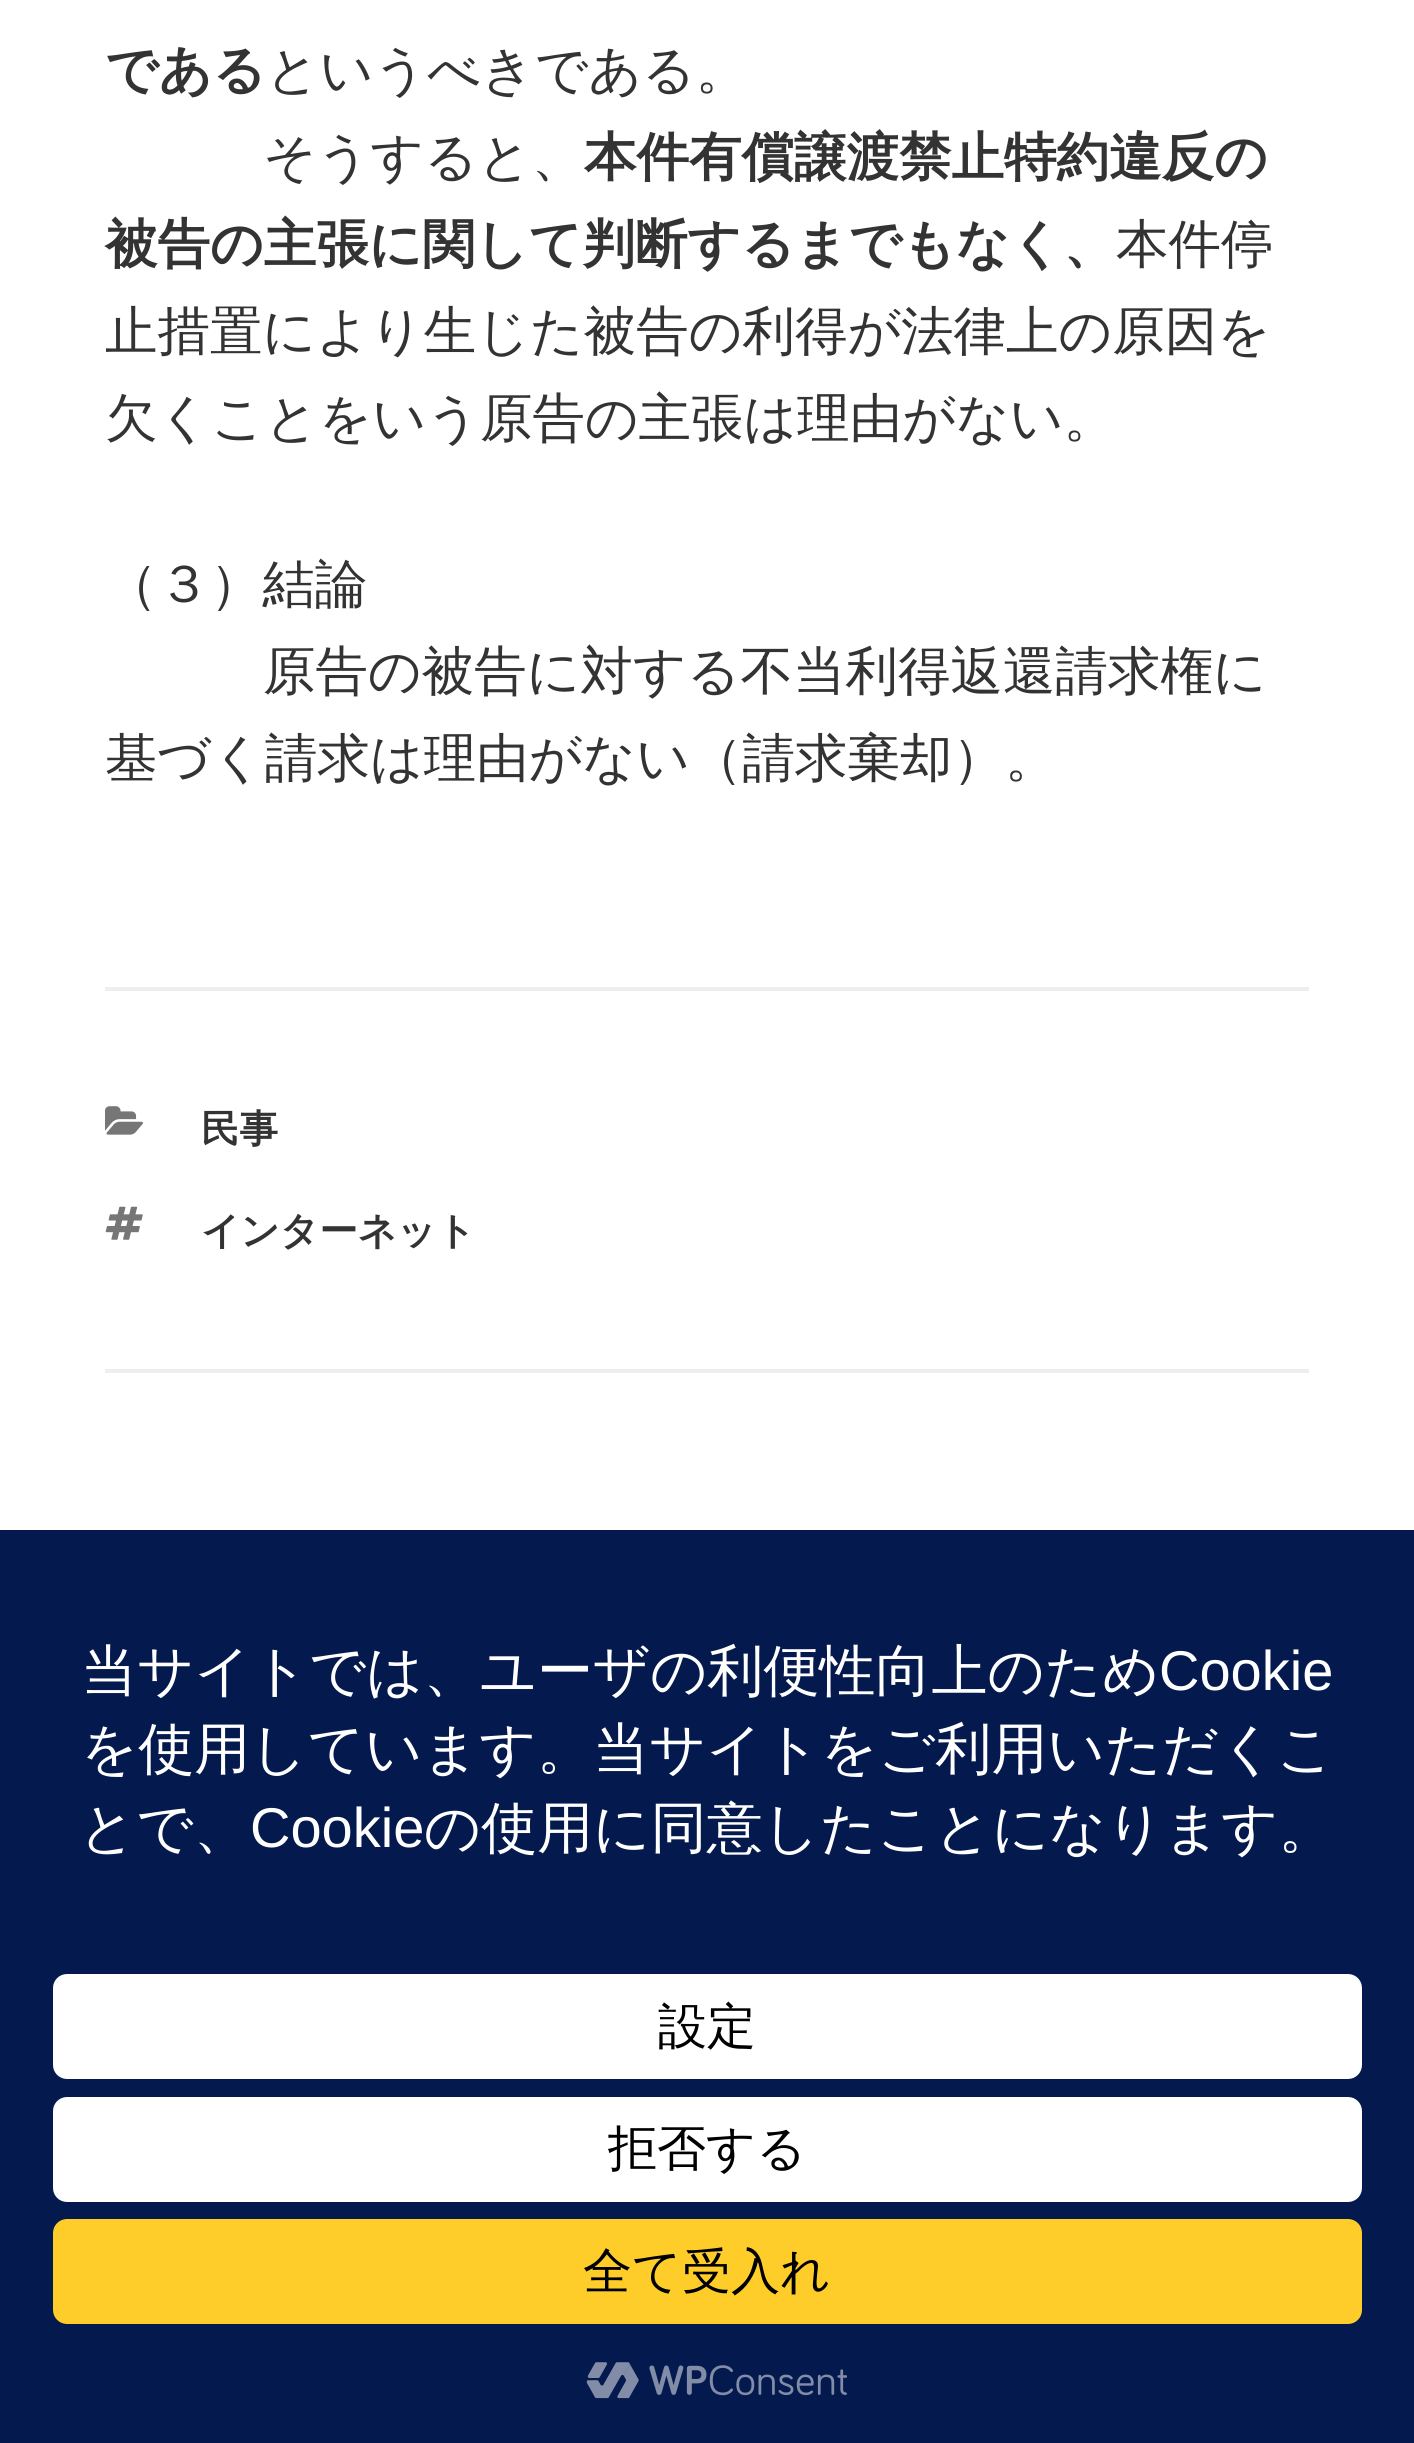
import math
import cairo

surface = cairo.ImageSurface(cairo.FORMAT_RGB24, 1414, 2443)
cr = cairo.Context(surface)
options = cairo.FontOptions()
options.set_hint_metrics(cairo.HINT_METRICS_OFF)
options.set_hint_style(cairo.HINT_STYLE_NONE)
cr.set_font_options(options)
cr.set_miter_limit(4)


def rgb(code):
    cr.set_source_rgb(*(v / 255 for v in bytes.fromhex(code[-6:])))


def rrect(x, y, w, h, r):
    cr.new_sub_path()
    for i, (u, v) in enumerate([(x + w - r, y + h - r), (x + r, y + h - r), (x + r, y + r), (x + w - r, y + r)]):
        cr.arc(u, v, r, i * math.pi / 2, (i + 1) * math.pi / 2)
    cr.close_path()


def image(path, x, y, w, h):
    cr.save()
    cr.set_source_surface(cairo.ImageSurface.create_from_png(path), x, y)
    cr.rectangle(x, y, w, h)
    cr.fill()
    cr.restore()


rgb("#ffffff")
cr.paint()
rgb("#eeeeee")
cr.rectangle(105, 987, 1204, 4)
cr.fill()
cr.rectangle(105, 1369, 1204, 4)
cr.fill()
image("img/1.png", 105, 1106, 38, 29)
image("img/2.png", 105, 1206, 38, 34)
rgb("#04194e")
cr.rectangle(0, 1530, 1414, 913)
cr.fill()
rgb("#ffffff")
rrect(53, 1974, 1309, 105, 14)
cr.fill()
rrect(53, 2097, 1309, 105, 14)
cr.fill()
rgb("#ffcd2a")
rrect(53, 2219, 1309, 105, 14)
cr.fill()
image("img/3.png", 586, 2362, 261, 37)
cr.select_font_face("WenQuanYi Zen Hei", cairo.FONT_SLANT_NORMAL, cairo.FONT_WEIGHT_BOLD)
cr.set_font_size(52.5)
rgb("#333333")
cr.move_to(105, 88)
cr.show_text("である")
cr.select_font_face("WenQuanYi Zen Hei Medium")
cr.move_to(266, 88)
cr.show_text("というべきである。")
cr.move_to(263, 175)
cr.show_text("そうすると、")
cr.select_font_face("WenQuanYi Zen Hei", cairo.FONT_SLANT_NORMAL, cairo.FONT_WEIGHT_BOLD)
cr.move_to(584, 175)
cr.show_text("本件有償譲渡禁止特約違反の")
cr.move_to(105, 262)
cr.show_text("被告の主張に関して判断するまでもなく、")
cr.select_font_face("WenQuanYi Zen Hei Medium")
for x, y, s in [
    (1116, 262, "本件停"),
    (105, 349, "止措置により生じた被告の利得が法律上の原因を"),
    (105, 436, "欠くことをいう原告の主張は理由がない。"),
    (105, 602, "（３）結論"),
    (263, 689, "原告の被告に対する不当利得返還請求権に"),
    (105, 776, "基づく請求は理由がない（請求棄却）。"),
]:
    cr.move_to(x, y)
    cr.show_text(s)
cr.select_font_face("WenQuanYi Zen Hei", cairo.FONT_SLANT_NORMAL, cairo.FONT_WEIGHT_BOLD)
cr.set_font_size(38.5)
cr.move_to(201, 1142)
cr.show_text("民事")
cr.move_to(201, 1244)
cr.show_text("インターネット")
cr.select_font_face("WenQuanYi Zen Hei Medium")
cr.set_font_size(56)
rgb("#ffffff")
cr.move_to(81, 1690)
cr.show_text("当サイトでは、ユーザの利便性向上のため")
cr.select_font_face("Liberation Sans")
cr.move_to(1159, 1690)
cr.show_text("Cookie")
cr.select_font_face("WenQuanYi Zen Hei Medium")
cr.move_to(81, 1768)
cr.show_text("を使用しています。当サイトをご利用いただくこ")
cr.move_to(79, 1847)
cr.show_text("とで、")
cr.select_font_face("Liberation Sans")
cr.move_to(250, 1847)
cr.show_text("Cookie")
cr.select_font_face("WenQuanYi Zen Hei Medium")
cr.move_to(424, 1847)
cr.show_text("の使用に同意したことになります。")
cr.set_font_size(49)
rgb("#000000")
for x, y, s in [
    (658, 2043, "設定"),
    (608, 2165, "拒否する"),
    (583, 2288, "全て受入れ"),
]:
    cr.move_to(x, y)
    cr.show_text(s)
surface.write_to_png("page.png")
